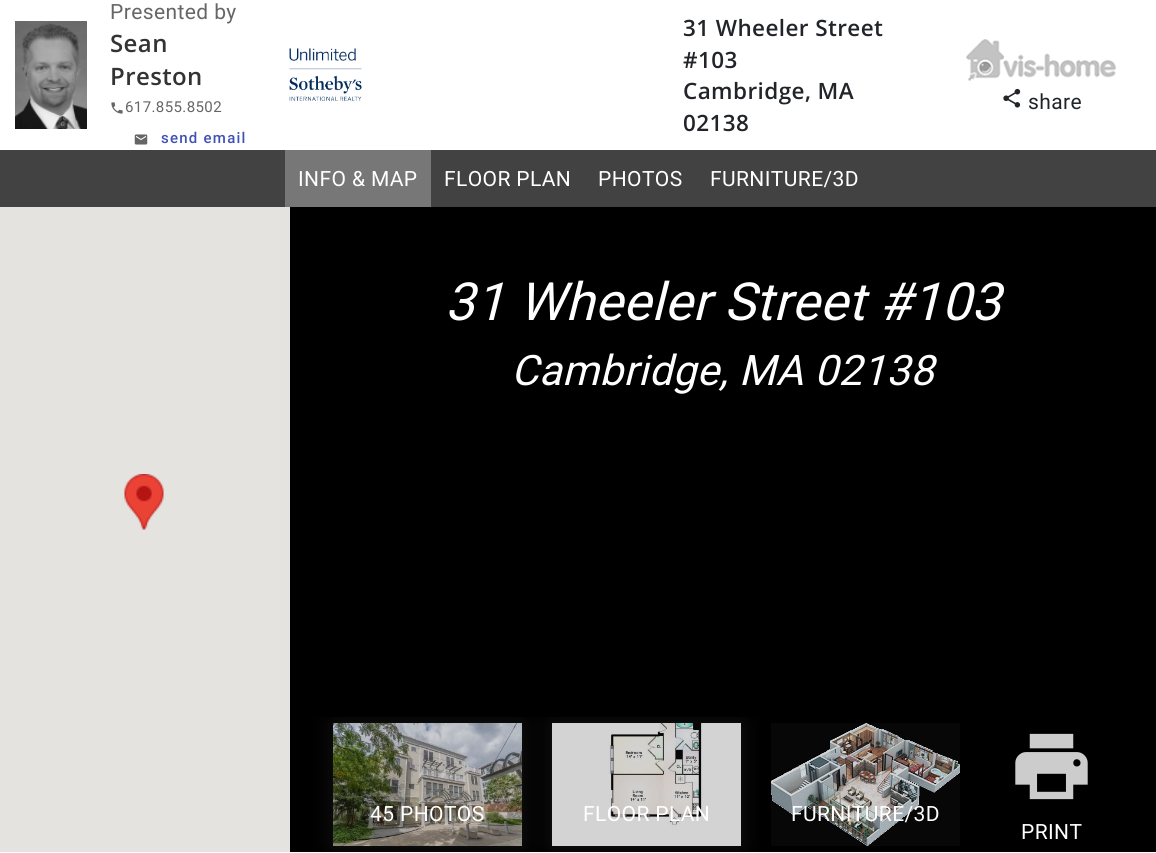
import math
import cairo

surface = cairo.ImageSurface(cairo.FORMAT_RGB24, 1156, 853)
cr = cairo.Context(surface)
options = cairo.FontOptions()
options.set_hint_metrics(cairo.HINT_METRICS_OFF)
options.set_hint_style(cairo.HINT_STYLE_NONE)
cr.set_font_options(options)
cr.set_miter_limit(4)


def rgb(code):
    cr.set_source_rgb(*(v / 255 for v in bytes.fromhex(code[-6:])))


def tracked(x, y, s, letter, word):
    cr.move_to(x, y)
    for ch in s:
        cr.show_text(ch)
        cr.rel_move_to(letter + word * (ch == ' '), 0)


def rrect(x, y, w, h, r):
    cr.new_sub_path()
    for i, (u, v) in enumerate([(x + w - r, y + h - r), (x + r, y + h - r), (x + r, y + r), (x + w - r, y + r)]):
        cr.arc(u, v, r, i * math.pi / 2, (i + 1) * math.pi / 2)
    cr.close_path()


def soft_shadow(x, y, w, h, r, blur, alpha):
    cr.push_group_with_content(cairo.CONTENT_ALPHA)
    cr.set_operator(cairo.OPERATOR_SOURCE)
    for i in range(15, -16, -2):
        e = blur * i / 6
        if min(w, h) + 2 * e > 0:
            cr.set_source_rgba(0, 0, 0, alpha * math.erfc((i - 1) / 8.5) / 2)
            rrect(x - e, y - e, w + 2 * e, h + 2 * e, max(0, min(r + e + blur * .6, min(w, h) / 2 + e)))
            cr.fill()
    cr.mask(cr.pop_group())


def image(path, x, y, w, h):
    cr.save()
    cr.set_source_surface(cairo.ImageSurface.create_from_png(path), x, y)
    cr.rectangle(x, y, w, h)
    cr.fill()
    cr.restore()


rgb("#ffffff")
cr.paint()
image("img/1.png", 15, 21, 72, 108)
image("img/2.png", 111, 102, 12, 12)
image("img/3.png", 134, 134, 14, 11)
image("img/4.png", 289, 48, 73, 53)
image("img/5.png", 966, 39, 150, 42)
image("img/6.png", 1003, 88, 18, 20)
for x, y, w, h, color in [
    (0, 150, 1156, 57, "#424242"),
    (285, 150, 146, 57, "#777777"),
    (0, 207, 290, 645, "#e5e3df"),
]:
    rgb(color)
    cr.rectangle(x, y, w, h)
    cr.fill()
image("img/7.png", 124, 474, 40, 56)
rgb("#000000")
cr.rectangle(290, 207, 866, 645)
cr.fill()
rgb("#070707")
cr.rectangle(771, 723, 189, 123)
cr.fill()
cr.save()
cr.rectangle(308, 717, 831, 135)
cr.clip()
rgb("#141414")
soft_shadow(333, 723, 189, 123, 0, 11, 1)
cr.restore()
image("img/8.png", 333, 723, 189, 123)
cr.save()
cr.rectangle(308, 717, 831, 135)
cr.clip()
rgb("#141414")
soft_shadow(552, 723, 189, 123, 0, 11, 1)
cr.restore()
image("img/9.png", 552, 723, 189, 123)
image("img/10.png", 771, 723, 189, 123)
image("img/11.png", 1015, 733, 73, 67)
cr.select_font_face("Roboto")
cr.set_font_size(21)
rgb("#666666")
tracked(110, 19, "Presented by", 0.4, 0)
cr.select_font_face("Open Sans SemiBold")
cr.set_font_size(24)
rgb("#333333")
tracked(110, 52, "Sean", 0.4, 0)
tracked(110, 85, "Preston", 0.4, 0)
cr.select_font_face("Roboto")
cr.set_font_size(15)
rgb("#666666")
tracked(125, 112, "617.855.8502", 0.4, 0)
cr.select_font_face("Roboto Medium")
rgb("#3f51b5")
tracked(161, 143, "send email", 1.25, 0)
cr.select_font_face("Open Sans SemiBold")
cr.set_font_size(22.5)
rgb("#212529")
for x, y, s in [
    (683, 36, "31 Wheeler Street"),
    (683, 68, "#103"),
    (683, 99, "Cambridge, MA"),
    (683, 131, "02138"),
]:
    tracked(x, y, s, 0.4, 0)
cr.select_font_face("Roboto")
cr.set_font_size(21)
tracked(1028, 109, "share", 0.4, 0)
rgb("#ffffff")
for x, y, s in [
    (298, 186, "INFO & MAP"),
    (444, 186, "FLOOR PLAN"),
    (598, 186, "PHOTOS"),
    (710, 186, "FURNITURE/3D"),
]:
    tracked(x, y, s, 0.4, 0)
cr.select_font_face("Roboto", cairo.FONT_SLANT_ITALIC)
cr.set_font_size(52.5)
tracked(445, 320, "31 Wheeler Street #103", 0.4, 0)
cr.set_font_size(42)
tracked(511, 385, "Cambridge, MA 02138", 0.4, 0)
cr.select_font_face("Roboto")
cr.set_font_size(21)
for x, y, s in [
    (370, 821, "45 PHOTOS"),
    (583, 821, "FLOOR PLAN"),
    (791, 821, "FURNITURE/3D"),
    (1021, 839, "PRINT"),
]:
    tracked(x, y, s, 0.4, 0)
surface.write_to_png("page.png")
